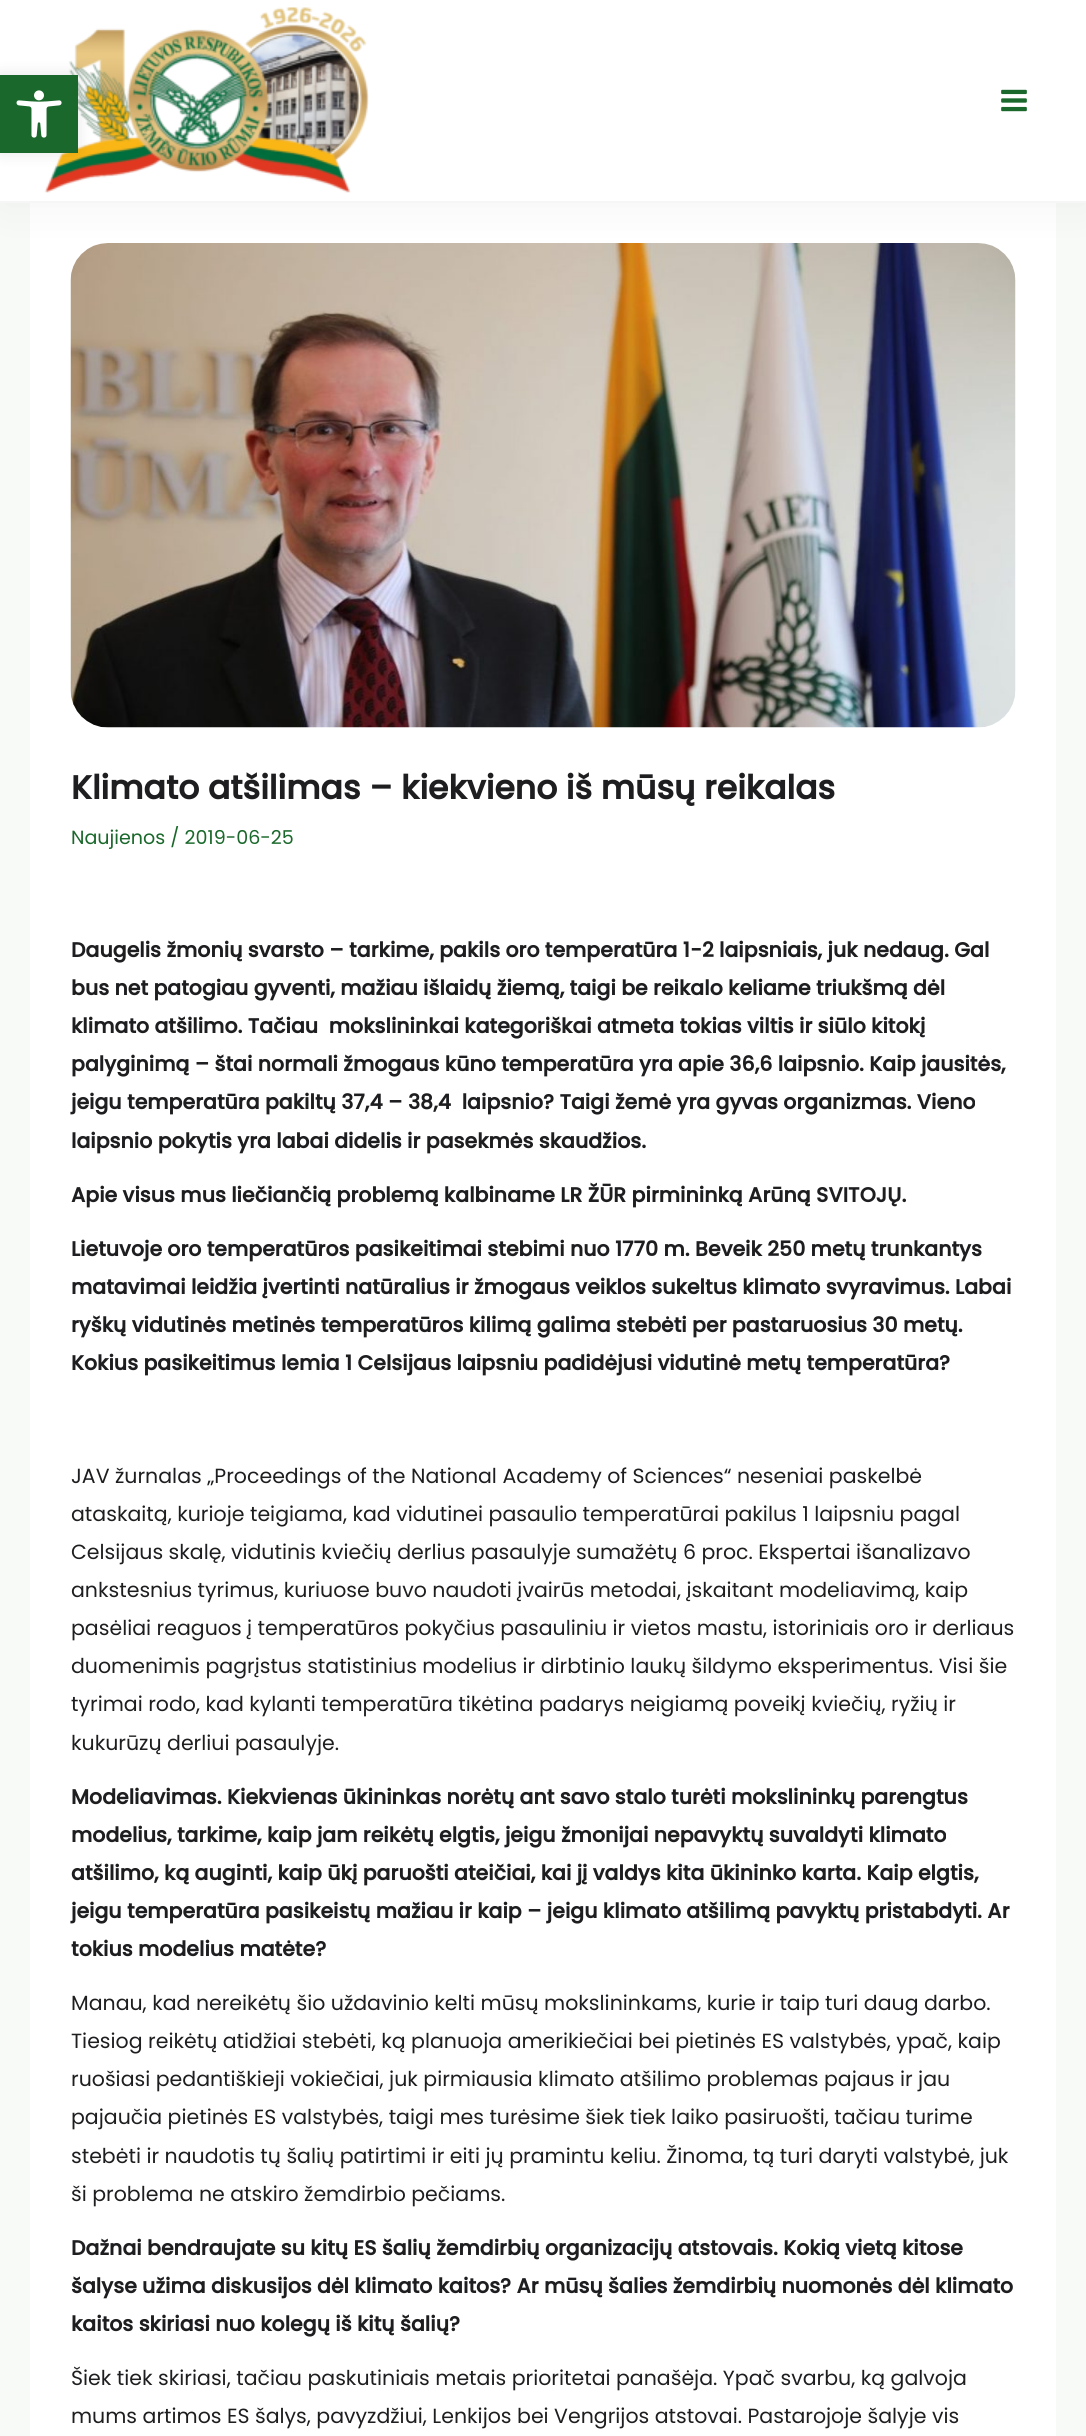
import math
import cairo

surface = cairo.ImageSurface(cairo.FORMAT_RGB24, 1086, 2436)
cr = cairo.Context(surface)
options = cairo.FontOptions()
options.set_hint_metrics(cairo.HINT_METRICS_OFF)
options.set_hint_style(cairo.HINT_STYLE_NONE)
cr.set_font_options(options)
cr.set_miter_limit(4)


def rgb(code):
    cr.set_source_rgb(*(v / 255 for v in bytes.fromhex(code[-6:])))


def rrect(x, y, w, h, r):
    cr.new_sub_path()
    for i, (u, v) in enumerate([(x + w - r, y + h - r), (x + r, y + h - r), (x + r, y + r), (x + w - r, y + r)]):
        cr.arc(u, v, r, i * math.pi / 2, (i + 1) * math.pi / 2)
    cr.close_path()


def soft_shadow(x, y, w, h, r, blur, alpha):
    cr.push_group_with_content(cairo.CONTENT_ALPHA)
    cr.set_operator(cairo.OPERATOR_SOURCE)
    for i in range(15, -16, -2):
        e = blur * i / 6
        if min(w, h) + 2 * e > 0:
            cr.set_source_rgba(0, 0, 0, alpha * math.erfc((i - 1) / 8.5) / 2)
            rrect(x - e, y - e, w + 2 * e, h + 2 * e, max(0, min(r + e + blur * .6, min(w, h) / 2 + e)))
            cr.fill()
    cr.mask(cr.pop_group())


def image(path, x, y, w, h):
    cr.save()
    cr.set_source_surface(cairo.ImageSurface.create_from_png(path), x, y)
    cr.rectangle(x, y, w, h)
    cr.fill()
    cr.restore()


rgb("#f8faf7")
cr.paint()
rgb("#ffffff")
cr.rectangle(30, 203, 1026, 2233)
cr.fill()
image("img/4.png", 70, 243, 946, 485)
rgb("#000000")
soft_shadow(2, 2, 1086, 202, 0, 22.5, 0.05)
rgb("#ffffff")
cr.rectangle(0, 0, 1086, 201)
cr.fill()
image("img/2.png", 44, 7, 325, 186)
rgb("#000000")
soft_shadow(0, 75, 78, 78, 0, 7.5, 0.1)
rgb("#1a682b")
cr.rectangle(0, 75, 78, 78)
cr.fill()
image("img/1.png", 16, 90, 46, 48)
rgb("#f6f6f6")
cr.rectangle(0, 201, 1086, 2)
cr.fill()
image("img/3.png", 1001, 89, 26, 23)
cr.select_font_face("Poppins", cairo.FONT_SLANT_NORMAL, cairo.FONT_WEIGHT_BOLD)
cr.set_font_size(33)
rgb("#1e1e21")
cr.move_to(71, 799)
cr.show_text("Klimato atšilimas – kiekvieno iš mūsų reikalas")
cr.select_font_face("Poppins")
cr.set_font_size(19.1)
rgb("#1a682b")
cr.move_to(71, 844)
cr.show_text("Naujienos / 2019-06-25")
cr.select_font_face("Poppins", cairo.FONT_SLANT_NORMAL, cairo.FONT_WEIGHT_BOLD)
cr.set_font_size(20.5)
rgb("#1e1e21")
for x, y, s in [
    (71, 957, "Daugelis žmonių svarsto – tarkime, pakils oro temperatūra 1-2 laipsniais, juk nedaug. Gal"),
    (71, 995, "bus net patogiau gyventi, mažiau išlaidų žiemą, taigi be reikalo keliame triukšmą dėl"),
    (71, 1033, "klimato atšilimo. Tačiau  mokslininkai kategoriškai atmeta tokias viltis ir siūlo kitokį"),
    (71, 1071, "palyginimą – štai normali žmogaus kūno temperatūra yra apie 36,6 laipsnio. Kaip jausitės,"),
    (71, 1109, "jeigu temperatūra pakiltų 37,4 – 38,4  laipsnio? Taigi žemė yra gyvas organizmas. Vieno"),
    (71, 1148, "laipsnio pokytis yra labai didelis ir pasekmės skaudžios."),
    (71, 1202, "Apie visus mus liečiančią problemą kalbiname LR ŽŪR pirmininką Arūną SVITOJŲ."),
    (71, 1256, "Lietuvoje oro temperatūros pasikeitimai stebimi nuo 1770 m. Beveik 250 metų trunkantys"),
    (71, 1294, "matavimai leidžia įvertinti natūralius ir žmogaus veiklos sukeltus klimato svyravimus. Labai"),
    (71, 1332, "ryškų vidutinės metinės temperatūros kilimą galima stebėti per pastaruosius 30 metų."),
    (71, 1370, "Kokius pasikeitimus lemia 1 Celsijaus laipsniu padidėjusi vidutinė metų temperatūra?"),
]:
    cr.move_to(x, y)
    cr.show_text(s)
cr.select_font_face("Poppins")
for x, y, s in [
    (71, 1483, "JAV žurnalas „Proceedings of the National Academy of Sciences“ neseniai paskelbė"),
    (71, 1521, "ataskaitą, kurioje teigiama, kad vidutinei pasaulio temperatūrai pakilus 1 laipsniu pagal"),
    (71, 1559, "Celsijaus skalę, vidutinis kviečių derlius pasaulyje sumažėtų 6 proc. Ekspertai išanalizavo"),
    (71, 1597, "ankstesnius tyrimus, kuriuose buvo naudoti įvairūs metodai, įskaitant modeliavimą, kaip"),
    (71, 1635, "pasėliai reaguos į temperatūros pokyčius pasauliniu ir vietos mastu, istoriniais oro ir derliaus"),
    (71, 1673, "duomenimis pagrįstus statistinius modelius ir dirbtinio laukų šildymo eksperimentus. Visi šie"),
    (71, 1711, "tyrimai rodo, kad kylanti temperatūra tikėtina padarys neigiamą poveikį kviečių, ryžių ir"),
    (71, 1750, "kukurūzų derliui pasaulyje."),
]:
    cr.move_to(x, y)
    cr.show_text(s)
cr.select_font_face("Poppins", cairo.FONT_SLANT_NORMAL, cairo.FONT_WEIGHT_BOLD)
for x, y, s in [
    (71, 1804, "Modeliavimas. Kiekvienas ūkininkas norėtų ant savo stalo turėti mokslininkų parengtus"),
    (71, 1842, "modelius, tarkime, kaip jam reikėtų elgtis, jeigu žmonijai nepavyktų suvaldyti klimato"),
    (71, 1880, "atšilimo, ką auginti, kaip ūkį paruošti ateičiai, kai jį valdys kita ūkininko karta. Kaip elgtis,"),
    (71, 1918, "jeigu temperatūra pasikeistų mažiau ir kaip – jeigu klimato atšilimą pavyktų pristabdyti. Ar"),
    (71, 1956, "tokius modelius matėte?"),
]:
    cr.move_to(x, y)
    cr.show_text(s)
cr.select_font_face("Poppins")
for x, y, s in [
    (71, 2010, "Manau, kad nereikėtų šio uždavinio kelti mūsų mokslininkams, kurie ir taip turi daug darbo."),
    (71, 2048, "Tiesiog reikėtų atidžiai stebėti, ką planuoja amerikiečiai bei pietinės ES valstybės, ypač, kaip"),
    (71, 2086, "ruošiasi pedantiškieji vokiečiai, juk pirmiausia klimato atšilimo problemas pajaus ir jau"),
    (71, 2124, "pajaučia pietinės ES valstybės, taigi mes turėsime šiek tiek laiko pasiruošti, tačiau turime"),
    (71, 2163, "stebėti ir naudotis tų šalių patirtimi ir eiti jų pramintu keliu. Žinoma, tą turi daryti valstybė, juk"),
    (71, 2201, "ši problema ne atskiro žemdirbio pečiams."),
]:
    cr.move_to(x, y)
    cr.show_text(s)
cr.select_font_face("Poppins", cairo.FONT_SLANT_NORMAL, cairo.FONT_WEIGHT_BOLD)
for x, y, s in [
    (71, 2255, "Dažnai bendraujate su kitų ES šalių žemdirbių organizacijų atstovais. Kokią vietą kitose"),
    (71, 2293, "šalyse užima diskusijos dėl klimato kaitos? Ar mūsų šalies žemdirbių nuomonės dėl klimato"),
    (71, 2331, "kaitos skiriasi nuo kolegų iš kitų šalių?"),
]:
    cr.move_to(x, y)
    cr.show_text(s)
cr.select_font_face("Poppins")
cr.move_to(71, 2385)
cr.show_text("Šiek tiek skiriasi, tačiau paskutiniais metais prioritetai panašėja. Ypač svarbu, ką galvoja")
cr.move_to(71, 2423)
cr.show_text("mums artimos ES šalys, pavyzdžiui, Lenkijos bei Vengrijos atstovai. Pastarojoje šalyje vis")
surface.write_to_png("page.png")
